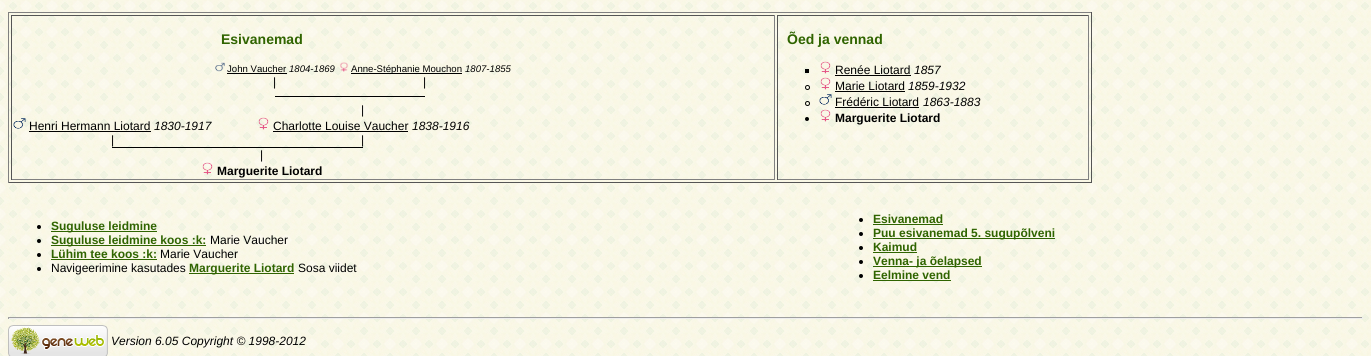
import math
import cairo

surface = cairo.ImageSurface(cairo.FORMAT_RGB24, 1371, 356)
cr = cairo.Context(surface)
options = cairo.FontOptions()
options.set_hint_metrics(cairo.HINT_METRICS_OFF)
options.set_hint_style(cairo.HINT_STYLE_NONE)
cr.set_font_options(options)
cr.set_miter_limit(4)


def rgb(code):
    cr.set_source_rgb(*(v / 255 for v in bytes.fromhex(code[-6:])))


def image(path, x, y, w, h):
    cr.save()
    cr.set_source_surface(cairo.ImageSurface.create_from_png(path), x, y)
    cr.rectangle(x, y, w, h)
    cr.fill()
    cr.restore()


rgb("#ffffff")
cr.paint()
image("img/1.png", 0, 0, 1371, 356)
for x, y, w, h, color in [
    (8, 12, 1084, 1, "#808080"),
    (1091, 12, 1, 171, "#555555"),
    (8, 182, 1084, 1, "#555555"),
    (8, 12, 1, 171, "#808080"),
    (11, 15, 764, 1, "#555555"),
    (774, 15, 1, 165, "#808080"),
    (11, 179, 764, 1, "#808080"),
    (11, 15, 1, 165, "#555555"),
]:
    rgb(color)
    cr.rectangle(x, y, w, h)
    cr.fill()
image("img/2.png", 215, 62, 10, 10)
rgb("#000000")
cr.rectangle(227, 73, 60, 1)
cr.fill()
image("img/3.png", 340, 62, 9, 10)
cr.rectangle(351, 73, 111, 1)
cr.fill()
cr.rectangle(275, 96, 150, 1)
cr.fill()
image("img/4.png", 13, 118, 13, 11)
cr.rectangle(29, 131, 122, 1)
cr.fill()
image("img/5.png", 258, 117, 11, 13)
cr.rectangle(273, 131, 135, 1)
cr.fill()
cr.rectangle(112, 147, 251, 1)
cr.fill()
image("img/6.png", 202, 162, 11, 13)
for x, y, w, h, color in [
    (777, 15, 312, 1, "#555555"),
    (1088, 15, 1, 165, "#808080"),
    (777, 179, 312, 1, "#808080"),
    (777, 15, 1, 165, "#555555"),
    (805, 69, 4, 4, "#000000"),
]:
    rgb(color)
    cr.rectangle(x, y, w, h)
    cr.fill()
image("img/7.png", 820, 61, 11, 13)
cr.rectangle(835, 75, 76, 1)
cr.fill()
cr.arc(807.5, 87.5, 2, 0, 2 * math.pi)
cr.set_line_width(1)
cr.stroke()
image("img/8.png", 820, 77, 11, 13)
cr.rectangle(835, 91, 70, 1)
cr.fill()
cr.arc(807.5, 103.5, 2, 0, 2 * math.pi)
cr.stroke()
image("img/9.png", 819, 94, 13, 11)
cr.rectangle(835, 107, 84, 1)
cr.fill()
cr.arc(807, 119, 2, 0, 2 * math.pi)
cr.fill()
image("img/10.png", 820, 109, 11, 13)
cr.arc(39, 227, 2, 0, 2 * math.pi)
cr.fill()
rgb("#2f6400")
cr.rectangle(51, 231, 106, 1)
cr.fill()
rgb("#000000")
cr.arc(39, 241, 2, 0, 2 * math.pi)
cr.fill()
rgb("#2f6400")
cr.rectangle(51, 245, 155, 1)
cr.fill()
rgb("#000000")
cr.arc(39, 255, 2, 0, 2 * math.pi)
cr.fill()
rgb("#2f6400")
cr.rectangle(51, 259, 106, 1)
cr.fill()
rgb("#000000")
cr.arc(39, 269, 2, 0, 2 * math.pi)
cr.fill()
rgb("#2f6400")
cr.rectangle(189, 273, 105, 1)
cr.fill()
rgb("#000000")
cr.arc(861, 220, 2, 0, 2 * math.pi)
cr.fill()
rgb("#2f6400")
cr.rectangle(873, 224, 70, 1)
cr.fill()
rgb("#000000")
cr.arc(861, 234, 2, 0, 2 * math.pi)
cr.fill()
rgb("#2f6400")
cr.rectangle(873, 238, 182, 1)
cr.fill()
rgb("#000000")
cr.arc(861, 248, 2, 0, 2 * math.pi)
cr.fill()
rgb("#2f6400")
cr.rectangle(873, 252, 44, 1)
cr.fill()
rgb("#000000")
cr.arc(861, 262, 2, 0, 2 * math.pi)
cr.fill()
rgb("#2f6400")
cr.rectangle(873, 266, 109, 1)
cr.fill()
rgb("#000000")
cr.arc(861, 276, 2, 0, 2 * math.pi)
cr.fill()
for x, y, w, h, color in [
    (873, 280, 78, 1, "#2f6400"),
    (8, 317, 1355, 1, "#9f9f9f"),
    (1362, 317, 1, 2, "#eeeeee"),
    (8, 318, 1355, 1, "#eeeeee"),
    (8, 317, 1, 2, "#9f9f9f"),
]:
    rgb(color)
    cr.rectangle(x, y, w, h)
    cr.fill()
image("img/11.png", 8, 325, 100, 31)
cr.select_font_face("Liberation Sans", cairo.FONT_SLANT_NORMAL, cairo.FONT_WEIGHT_BOLD)
cr.set_font_size(14)
rgb("#2f6400")
cr.move_to(221, 44)
cr.show_text("Esivanemad")
cr.select_font_face("Liberation Sans")
cr.set_font_size(9.6)
rgb("#000000")
cr.move_to(227, 72)
cr.show_text("John Vaucher")
cr.select_font_face("Liberation Sans", cairo.FONT_SLANT_ITALIC)
cr.move_to(289, 72)
cr.show_text("1804-1869")
cr.select_font_face("Liberation Sans")
cr.move_to(351, 72)
cr.show_text("Anne-Stéphanie Mouchon")
cr.select_font_face("Liberation Sans", cairo.FONT_SLANT_ITALIC)
cr.move_to(465, 72)
cr.show_text("1807-1855")
cr.select_font_face("Liberation Sans")
cr.set_font_size(12)
for x, y, s in [
    (273, 86, "|"),
    (423, 86, "|"),
    (361, 114, "|"),
    (29, 130, "Henri Hermann Liotard"),
]:
    cr.move_to(x, y)
    cr.show_text(s)
cr.select_font_face("Liberation Sans", cairo.FONT_SLANT_ITALIC)
cr.move_to(154, 130)
cr.show_text("1830-1917")
cr.select_font_face("Liberation Sans")
cr.move_to(273, 130)
cr.show_text("Charlotte Louise Vaucher")
cr.select_font_face("Liberation Sans", cairo.FONT_SLANT_ITALIC)
cr.move_to(412, 130)
cr.show_text("1838-1916")
cr.select_font_face("Liberation Sans")
for x, y, s in [
    (111, 144, "|"),
    (361, 144, "|"),
    (260, 159, "|"),
]:
    cr.move_to(x, y)
    cr.show_text(s)
cr.select_font_face("Liberation Sans", cairo.FONT_SLANT_NORMAL, cairo.FONT_WEIGHT_BOLD)
cr.move_to(217, 175)
cr.show_text("Marguerite Liotard")
cr.set_font_size(14)
rgb("#2f6400")
cr.move_to(787, 44)
cr.show_text("Õed ja vennad")
cr.select_font_face("Liberation Sans")
cr.set_font_size(12)
rgb("#000000")
cr.move_to(835, 74)
cr.show_text("Renée Liotard")
cr.select_font_face("Liberation Sans", cairo.FONT_SLANT_ITALIC)
cr.move_to(914, 74)
cr.show_text("1857")
cr.select_font_face("Liberation Sans")
cr.move_to(835, 90)
cr.show_text("Marie Liotard")
cr.select_font_face("Liberation Sans", cairo.FONT_SLANT_ITALIC)
cr.move_to(908, 90)
cr.show_text("1859-1932")
cr.select_font_face("Liberation Sans")
cr.move_to(835, 106)
cr.show_text("Frédéric Liotard")
cr.select_font_face("Liberation Sans", cairo.FONT_SLANT_ITALIC)
cr.move_to(923, 106)
cr.show_text("1863-1883")
cr.select_font_face("Liberation Sans", cairo.FONT_SLANT_NORMAL, cairo.FONT_WEIGHT_BOLD)
cr.move_to(835, 122)
cr.show_text("Marguerite Liotard")
rgb("#2f6400")
cr.move_to(51, 230)
cr.show_text("Suguluse leidmine")
cr.move_to(51, 244)
cr.show_text("Suguluse leidmine koos :k:")
cr.select_font_face("Liberation Sans")
rgb("#000000")
cr.move_to(210, 244)
cr.show_text("Marie Vaucher")
cr.select_font_face("Liberation Sans", cairo.FONT_SLANT_NORMAL, cairo.FONT_WEIGHT_BOLD)
rgb("#2f6400")
cr.move_to(51, 258)
cr.show_text("Lühim tee koos :k:")
cr.select_font_face("Liberation Sans")
rgb("#000000")
cr.move_to(160, 258)
cr.show_text("Marie Vaucher")
cr.move_to(51, 272)
cr.show_text("Navigeerimine kasutades")
cr.select_font_face("Liberation Sans", cairo.FONT_SLANT_NORMAL, cairo.FONT_WEIGHT_BOLD)
rgb("#2f6400")
cr.move_to(189, 272)
cr.show_text("Marguerite Liotard")
cr.select_font_face("Liberation Sans")
rgb("#000000")
cr.move_to(298, 272)
cr.show_text("Sosa viidet")
cr.select_font_face("Liberation Sans", cairo.FONT_SLANT_NORMAL, cairo.FONT_WEIGHT_BOLD)
rgb("#2f6400")
for x, y, s in [
    (873, 223, "Esivanemad"),
    (873, 237, "Puu esivanemad 5. sugupõlveni"),
    (873, 251, "Kaimud"),
    (873, 265, "Venna- ja õelapsed"),
    (873, 279, "Eelmine vend"),
]:
    cr.move_to(x, y)
    cr.show_text(s)
cr.select_font_face("Liberation Sans", cairo.FONT_SLANT_ITALIC)
rgb("#000000")
cr.move_to(111, 345)
cr.show_text("Version 6.05 Copyright © 1998-2012")
surface.write_to_png("page.png")
